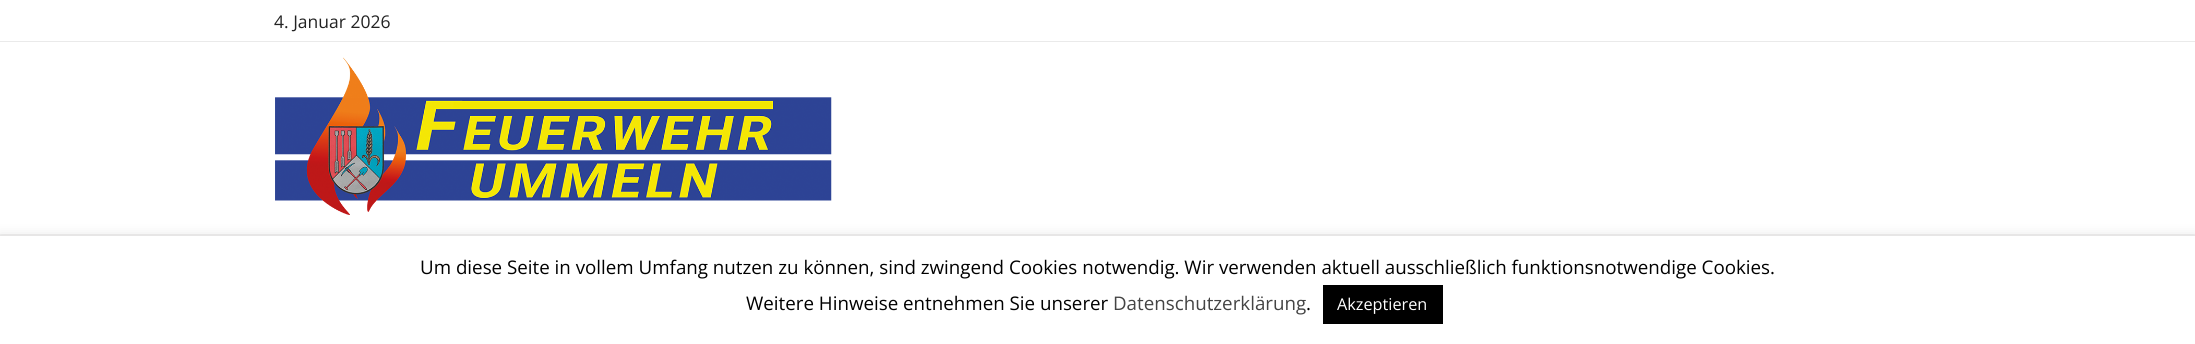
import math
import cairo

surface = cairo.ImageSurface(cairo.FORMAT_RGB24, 2195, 344)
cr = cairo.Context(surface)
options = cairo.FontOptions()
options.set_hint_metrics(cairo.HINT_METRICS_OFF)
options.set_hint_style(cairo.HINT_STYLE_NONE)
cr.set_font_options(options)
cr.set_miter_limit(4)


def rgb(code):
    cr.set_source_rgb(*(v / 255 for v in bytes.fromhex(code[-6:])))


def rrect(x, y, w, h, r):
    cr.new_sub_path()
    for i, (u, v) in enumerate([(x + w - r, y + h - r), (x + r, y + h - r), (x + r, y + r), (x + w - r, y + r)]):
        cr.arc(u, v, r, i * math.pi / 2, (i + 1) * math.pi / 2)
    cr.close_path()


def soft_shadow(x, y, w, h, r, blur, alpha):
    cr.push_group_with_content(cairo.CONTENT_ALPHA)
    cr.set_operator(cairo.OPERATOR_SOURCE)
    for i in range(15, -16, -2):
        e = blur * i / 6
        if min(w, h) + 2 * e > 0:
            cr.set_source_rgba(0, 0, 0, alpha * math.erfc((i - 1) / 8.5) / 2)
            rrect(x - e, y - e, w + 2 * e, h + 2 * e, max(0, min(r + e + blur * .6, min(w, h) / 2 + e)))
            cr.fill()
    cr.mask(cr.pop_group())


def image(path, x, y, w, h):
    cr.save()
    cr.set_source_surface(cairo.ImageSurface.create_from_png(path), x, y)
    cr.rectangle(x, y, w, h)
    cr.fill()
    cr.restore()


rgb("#ffffff")
cr.paint()
rgb("#eaeaea")
cr.rectangle(0, 41, 2195, 1)
cr.fill()
image("img/1.png", 275, 57, 557, 158)
rgb("#f1f1f1")
cr.rectangle(0, 234, 2195, 2)
cr.fill()
rgb("#acabab")
soft_shadow(0, 235, 2195, 109, 0, 6, 0.3)
rgb("#ffffff")
cr.rectangle(0, 236, 2195, 108)
cr.fill()
rgb("#000000")
cr.rectangle(1323, 285, 120, 39)
cr.fill()
cr.select_font_face("Open Sans")
cr.set_font_size(17.5)
rgb("#232323")
cr.move_to(274, 28)
cr.show_text("4. Januar 2026")
cr.set_font_size(18.75)
rgb("#000000")
cr.move_to(420, 274)
cr.show_text("Um diese Seite in vollem Umfang nutzen zu können, sind zwingend Cookies notwendig. Wir verwenden aktuell ausschließlich funktionsnotwendige Cookies.")
cr.move_to(746, 310)
cr.show_text("Weitere Hinweise entnehmen Sie unserer")
rgb("#444444")
cr.move_to(1113, 310)
cr.show_text("Datenschutzerklärung")
rgb("#000000")
cr.move_to(1306, 310)
cr.show_text(".")
cr.set_font_size(16.25)
rgb("#ffffff")
cr.move_to(1337, 310)
cr.show_text("Akzeptieren")
surface.write_to_png("page.png")
